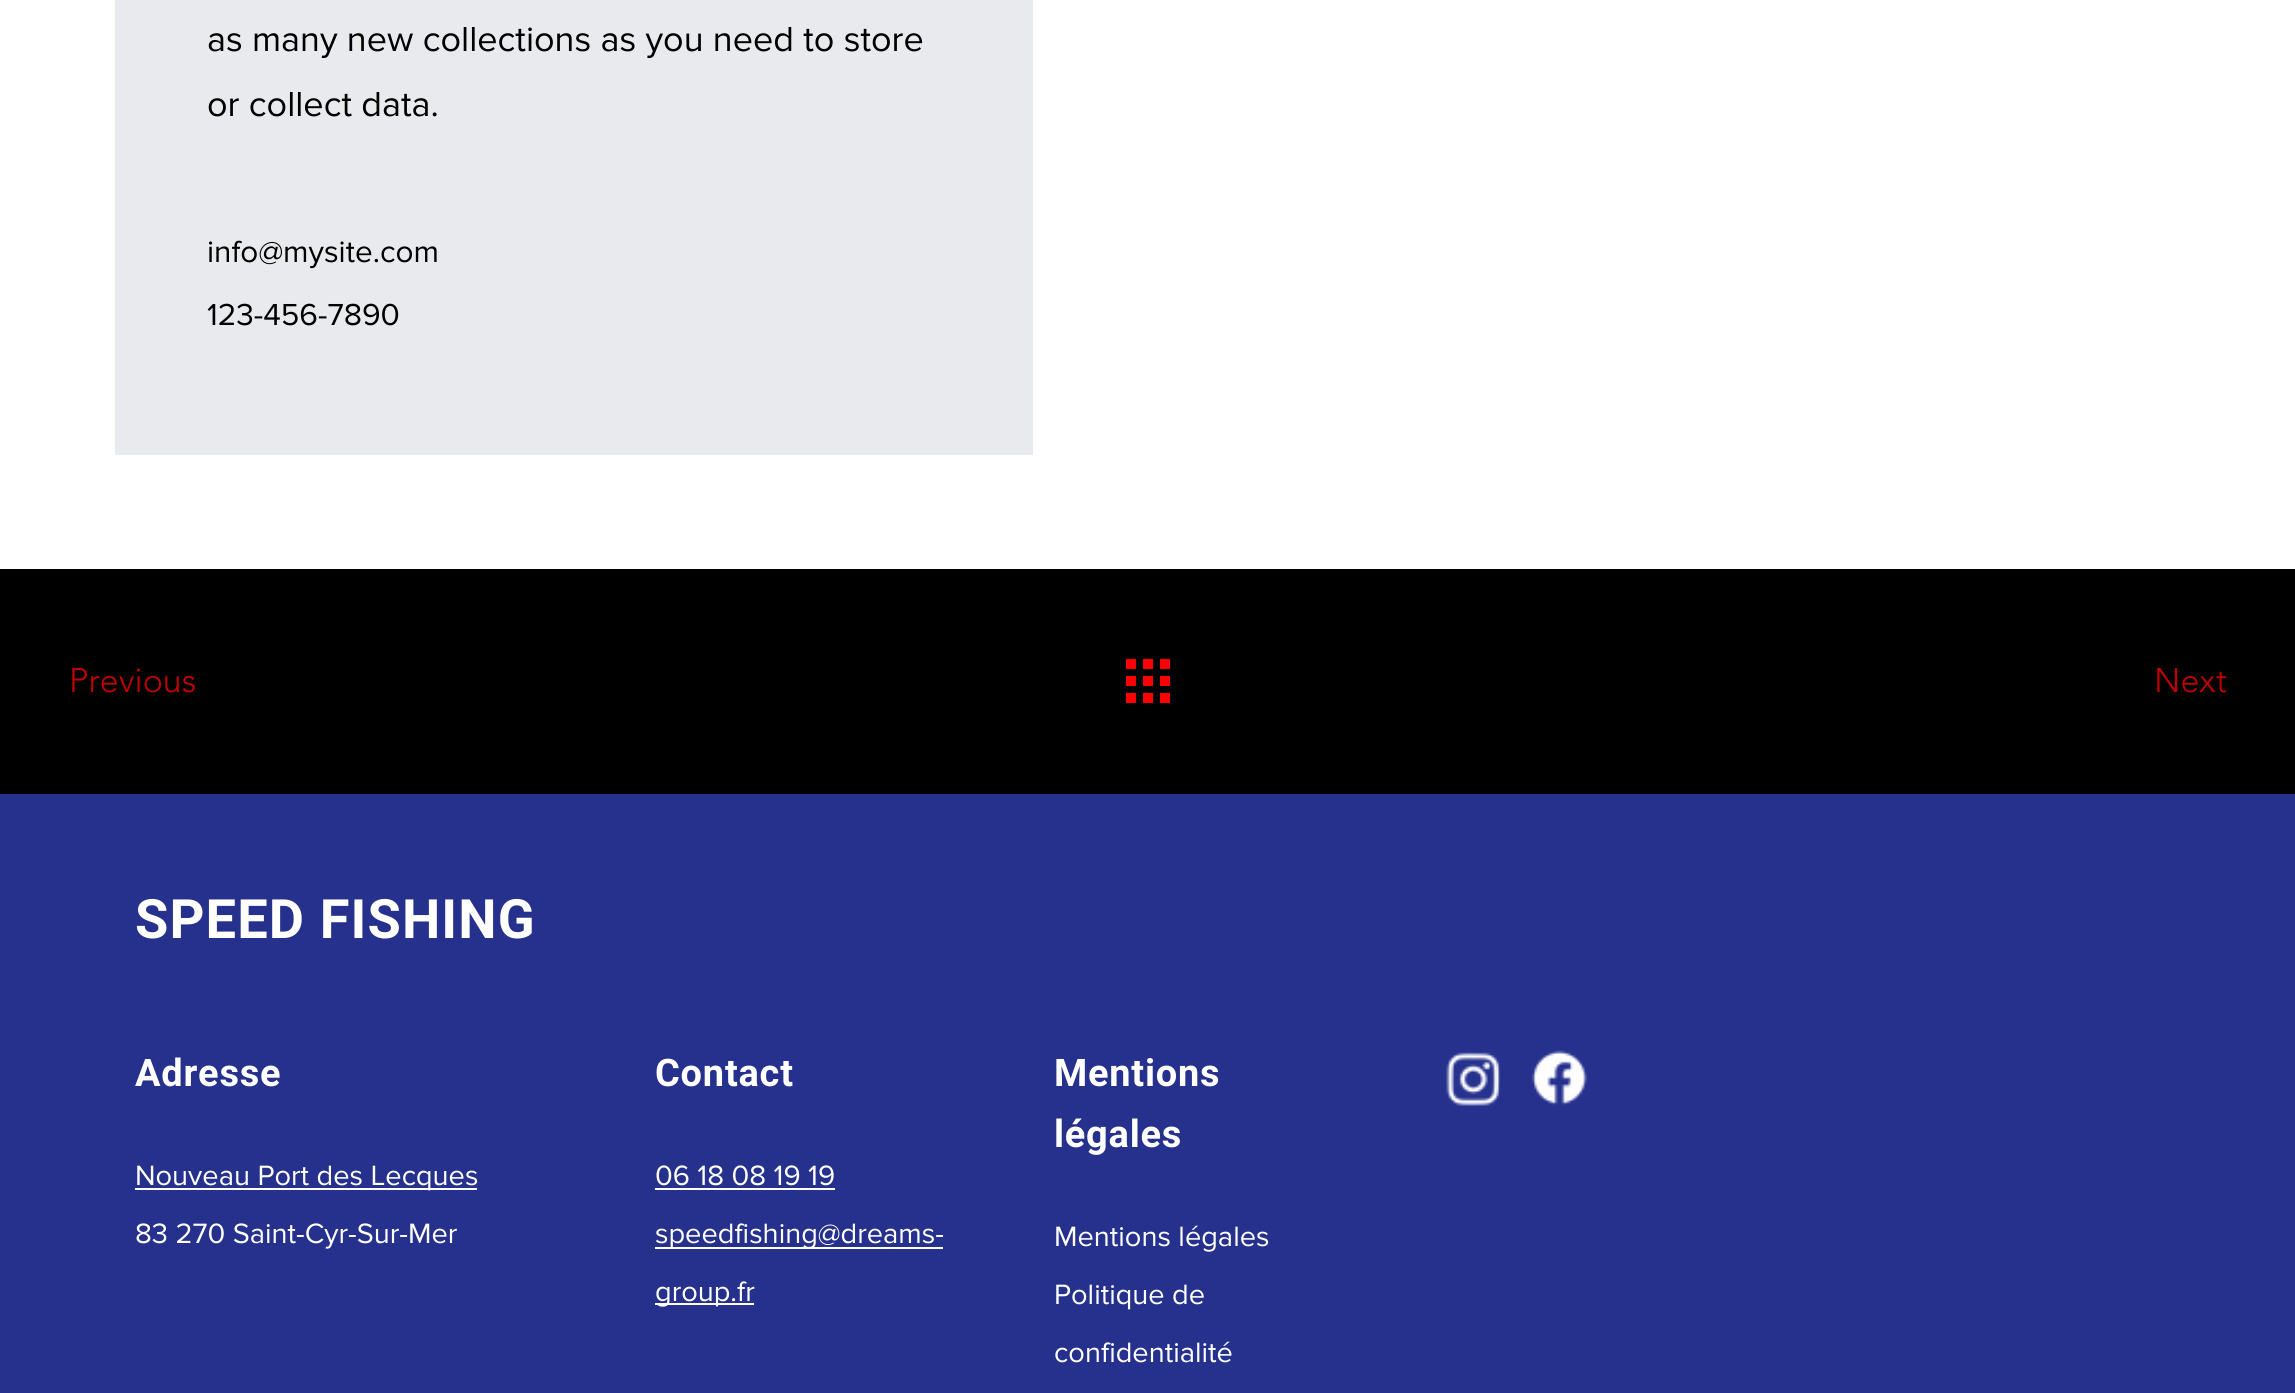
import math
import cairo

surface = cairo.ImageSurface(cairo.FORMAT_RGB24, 2295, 1393)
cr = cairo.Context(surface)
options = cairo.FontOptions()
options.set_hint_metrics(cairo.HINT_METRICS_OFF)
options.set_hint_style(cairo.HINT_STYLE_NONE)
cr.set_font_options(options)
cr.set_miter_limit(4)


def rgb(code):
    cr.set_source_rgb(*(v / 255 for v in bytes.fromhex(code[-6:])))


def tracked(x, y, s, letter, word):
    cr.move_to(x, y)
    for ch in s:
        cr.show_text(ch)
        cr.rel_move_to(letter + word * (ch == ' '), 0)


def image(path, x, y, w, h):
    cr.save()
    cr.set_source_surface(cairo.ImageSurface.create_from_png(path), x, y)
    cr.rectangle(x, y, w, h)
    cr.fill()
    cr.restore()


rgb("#ffffff")
cr.paint()
for x, y, w, h, color in [
    (115, 0, 918, 455, "#e8eaed"),
    (0, 569, 2295, 225, "#000000"),
    (1126, 659, 10, 10, "#ff0000"),
    (1126, 676, 10, 10, "#ff0000"),
    (1126, 693, 10, 10, "#ff0000"),
    (1143, 659, 10, 10, "#ff0000"),
    (1143, 676, 10, 10, "#ff0000"),
    (1143, 693, 10, 10, "#ff0000"),
    (1160, 659, 10, 10, "#ff0000"),
    (1160, 676, 10, 10, "#ff0000"),
    (1160, 693, 10, 10, "#ff0000"),
    (0, 794, 2295, 599, "#25318d"),
    (135, 1188, 342, 2, "#ffffff"),
    (655, 1188, 180, 2, "#ffffff"),
    (655, 1247, 288, 2, "#ffffff"),
    (655, 1303, 99, 2, "#ffffff"),
]:
    rgb(color)
    cr.rectangle(x, y, w, h)
    cr.fill()
image("img/1.png", 1446, 1052, 55, 54)
image("img/2.png", 1531, 1050, 56, 56)
cr.select_font_face("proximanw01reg")
cr.set_font_size(36)
rgb("#000000")
cr.move_to(207, 51)
cr.show_text("as many new collections as you need to store")
cr.move_to(207, 116)
cr.show_text("or collect data.")
cr.set_font_size(31.5)
cr.move_to(207, 262)
cr.show_text("info@mysite.com")
cr.move_to(207, 325)
cr.show_text("123-456-7890")
cr.select_font_face("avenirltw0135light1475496 Light")
cr.set_font_size(34)
rgb("#c40000")
cr.move_to(69, 692)
cr.show_text("Previous")
cr.move_to(2154, 692)
cr.show_text("Next")
cr.select_font_face("Roboto", cairo.FONT_SLANT_NORMAL, cairo.FONT_WEIGHT_BOLD)
cr.set_font_size(54.25)
rgb("#ffffff")
tracked(135, 938, "SPEED FISHING", 1.1, 0)
cr.set_font_size(38)
tracked(135, 1086, "Adresse", 0.75, 0)
cr.select_font_face("proximanw01reg")
cr.set_font_size(29)
cr.move_to(135, 1185)
cr.show_text("Nouveau Port des Lecques")
cr.move_to(135, 1243)
cr.show_text("83 270 Saint-Cyr-Sur-Mer")
cr.select_font_face("Roboto", cairo.FONT_SLANT_NORMAL, cairo.FONT_WEIGHT_BOLD)
cr.set_font_size(38)
tracked(655, 1086, "Contact", 0.75, 0)
cr.select_font_face("proximanw01reg")
cr.set_font_size(29)
for x, y, s in [
    (655, 1185, "06 18 08 19 19"),
    (655, 1243, "speedfishing@dreams-"),
    (655, 1301, "group.fr"),
]:
    cr.move_to(x, y)
    cr.show_text(s)
cr.select_font_face("Roboto", cairo.FONT_SLANT_NORMAL, cairo.FONT_WEIGHT_BOLD)
cr.set_font_size(38)
tracked(1054, 1086, "Mentions", 0.75, 0)
tracked(1054, 1147, "légales", 0.75, 0)
cr.select_font_face("proximanw01reg")
cr.set_font_size(29)
for x, y, s in [
    (1054, 1246, "Mentions légales"),
    (1054, 1304, "Politique de"),
    (1054, 1362, "confidentialité"),
]:
    cr.move_to(x, y)
    cr.show_text(s)
surface.write_to_png("page.png")
